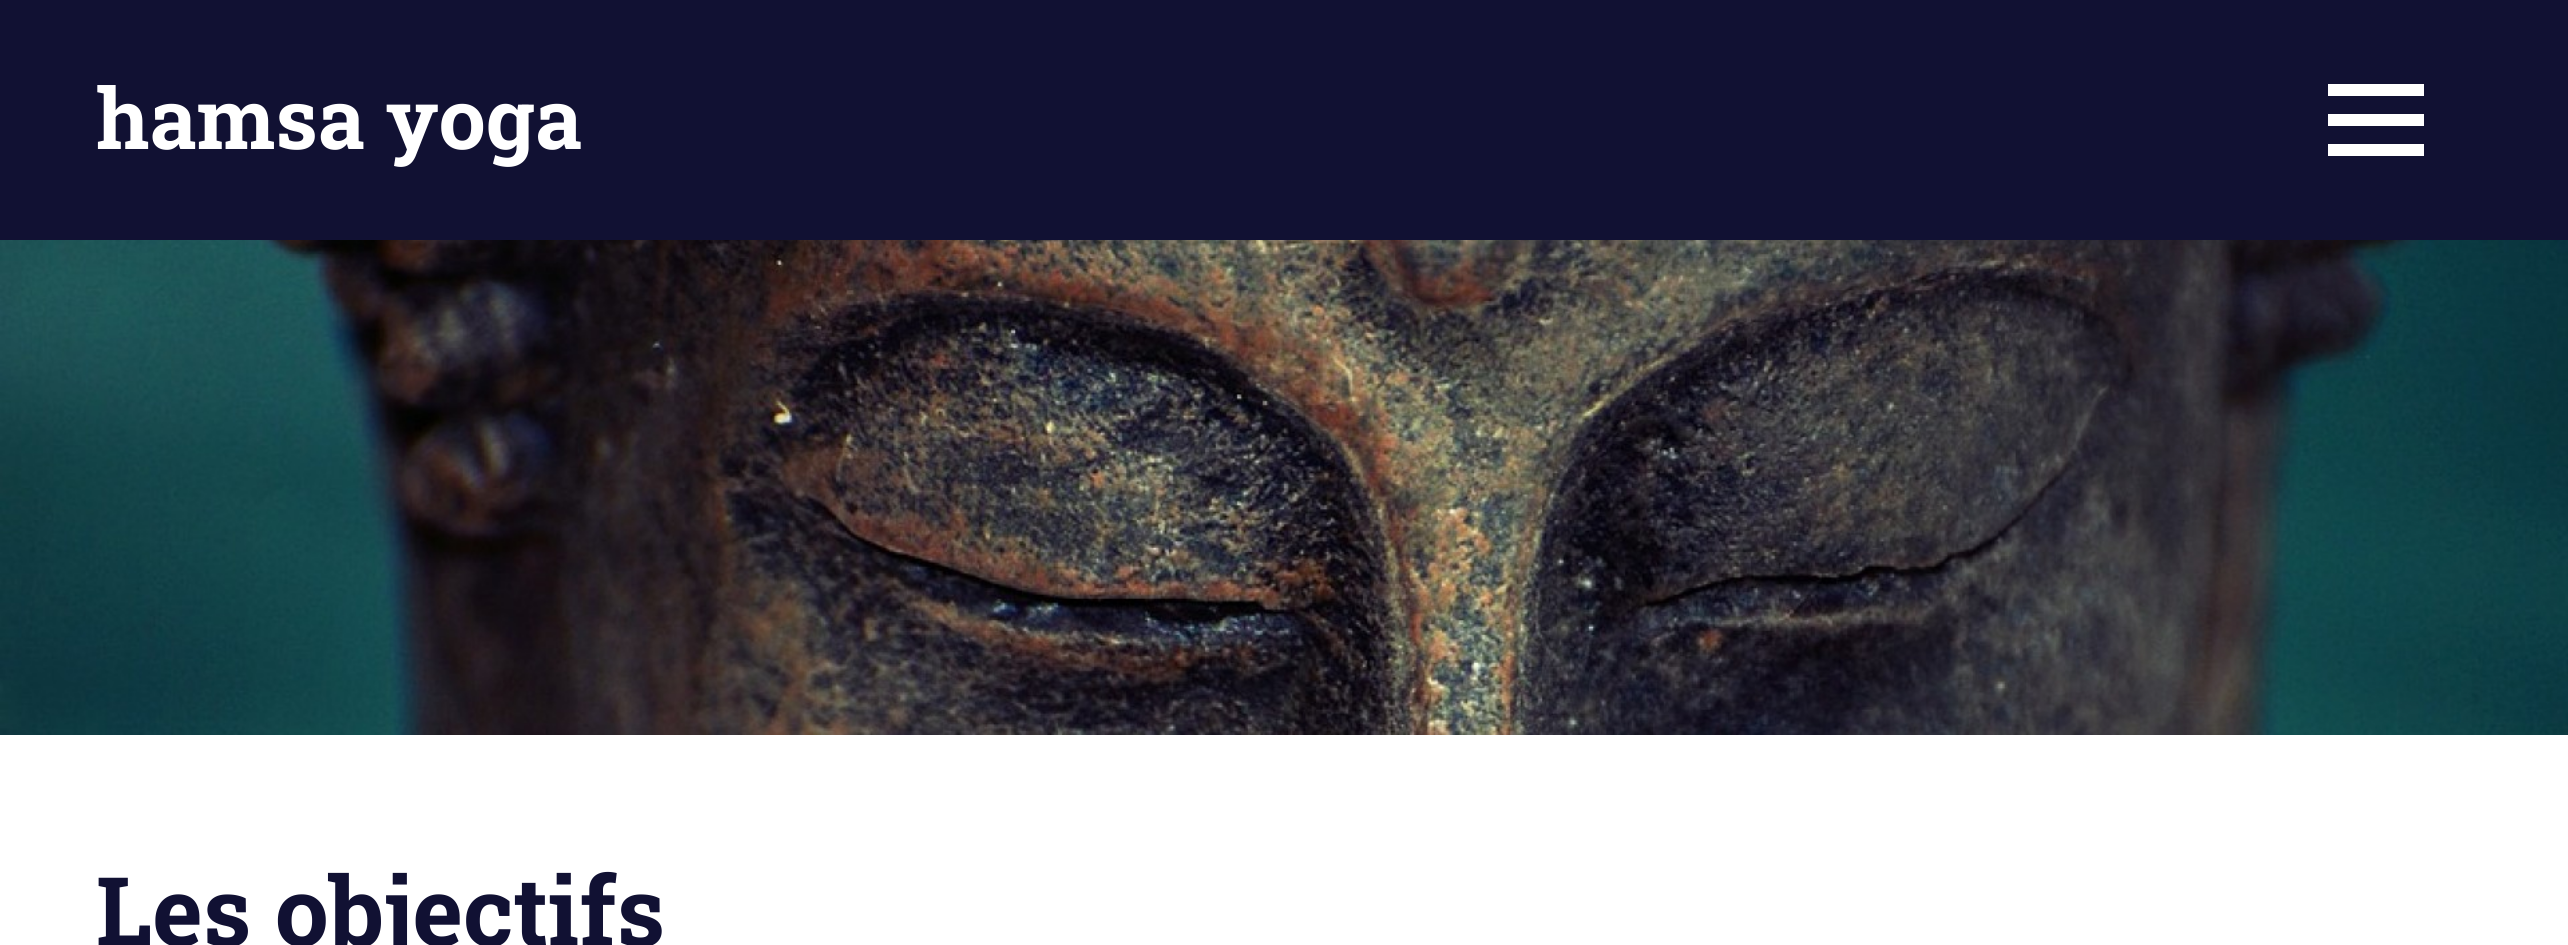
import math
import cairo

surface = cairo.ImageSurface(cairo.FORMAT_RGB24, 2568, 945)
cr = cairo.Context(surface)
options = cairo.FontOptions()
options.set_hint_metrics(cairo.HINT_METRICS_OFF)
options.set_hint_style(cairo.HINT_STYLE_NONE)
cr.set_font_options(options)
cr.set_miter_limit(4)


def rgb(code):
    cr.set_source_rgb(*(v / 255 for v in bytes.fromhex(code[-6:])))


def image(path, x, y, w, h):
    cr.save()
    cr.set_source_surface(cairo.ImageSurface.create_from_png(path), x, y)
    cr.rectangle(x, y, w, h)
    cr.fill()
    cr.restore()


rgb("#ffffff")
cr.paint()
rgb("#111133")
cr.rectangle(0, 0, 2568, 240)
cr.fill()
image("img/1.png", 2328, 84, 96, 72)
image("img/2.png", 0, 240, 2568, 495)
cr.select_font_face("Roboto Slab", cairo.FONT_SLANT_NORMAL, cairo.FONT_WEIGHT_BOLD)
cr.set_font_size(84)
rgb("#ffffff")
cr.move_to(96, 149)
cr.show_text("hamsa yoga")
cr.set_font_size(96)
rgb("#111133")
cr.move_to(96, 946)
cr.show_text("Les objectifs")
surface.write_to_png("page.png")
